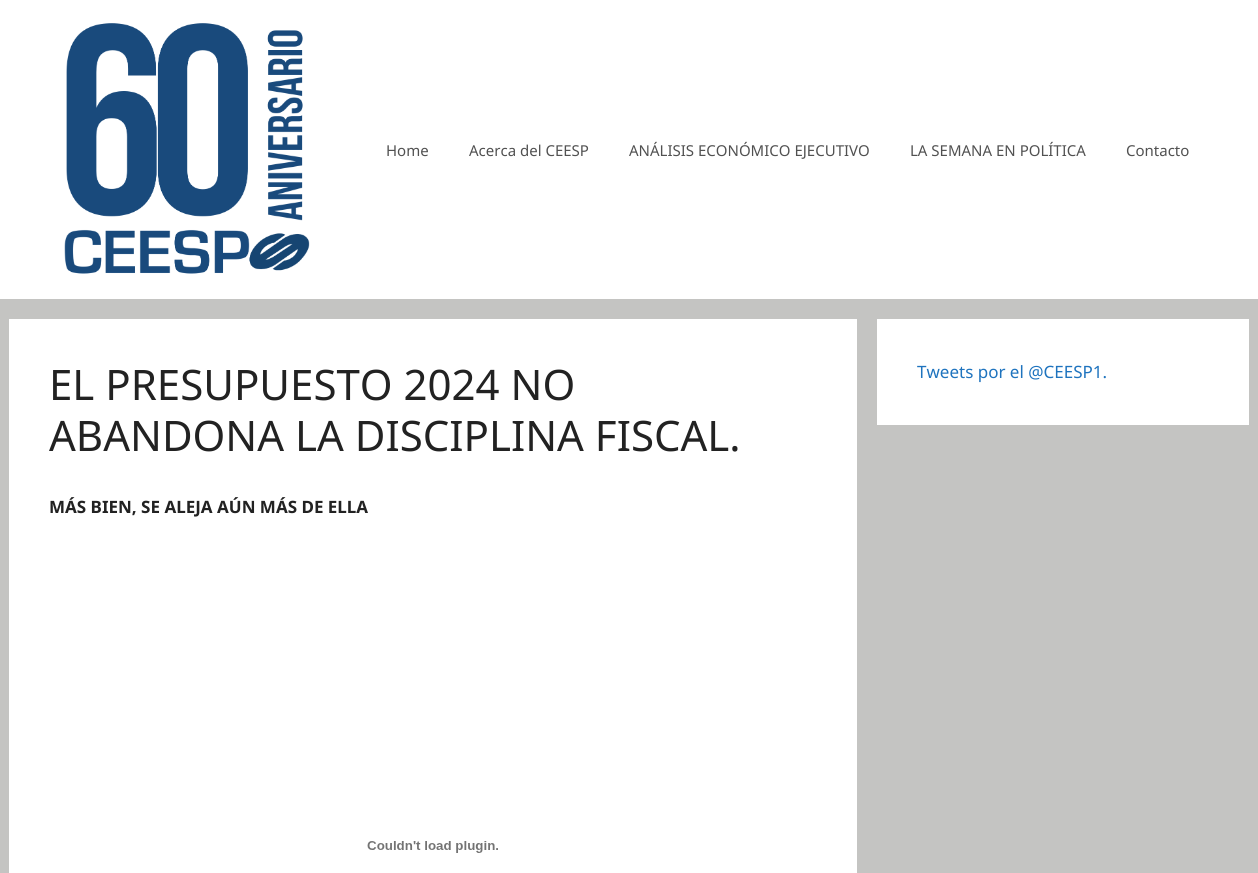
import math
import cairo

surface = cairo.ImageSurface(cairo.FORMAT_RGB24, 1258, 873)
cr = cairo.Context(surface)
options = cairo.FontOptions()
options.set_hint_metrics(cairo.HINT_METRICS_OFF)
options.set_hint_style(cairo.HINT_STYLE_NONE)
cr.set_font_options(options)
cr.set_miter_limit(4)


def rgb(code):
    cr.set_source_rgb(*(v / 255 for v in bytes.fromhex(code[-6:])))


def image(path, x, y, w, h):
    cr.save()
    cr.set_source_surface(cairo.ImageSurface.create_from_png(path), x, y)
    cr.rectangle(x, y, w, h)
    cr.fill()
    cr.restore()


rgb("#c4c4c2")
cr.paint()
rgb("#ffffff")
cr.rectangle(0, 0, 1258, 299)
cr.fill()
image("img/1.png", 64, 23, 246, 251)
cr.rectangle(9, 319, 848, 554)
cr.fill()
image("img/2.png", 367, 841, 131, 12)
cr.rectangle(877, 319, 372, 106)
cr.fill()
cr.select_font_face("Noto Sans")
cr.set_font_size(15)
rgb("#515151")
for x, y, s in [
    (386, 156, "Home"),
    (469, 156, "Acerca del CEESP"),
    (629, 156, "ANÁLISIS ECONÓMICO EJECUTIVO"),
    (910, 156, "LA SEMANA EN POLÍTICA"),
    (1126, 156, "Contacto"),
]:
    cr.move_to(x, y)
    cr.show_text(s)
cr.set_font_size(42)
rgb("#222222")
cr.move_to(49, 400)
cr.show_text("EL PRESUPUESTO 2024 NO")
cr.move_to(49, 451)
cr.show_text("ABANDONA LA DISCIPLINA FISCAL.")
cr.select_font_face("Noto Sans", cairo.FONT_SLANT_NORMAL, cairo.FONT_WEIGHT_BOLD)
cr.set_font_size(17)
cr.move_to(49, 513)
cr.show_text("MÁS BIEN, SE ALEJA AÚN MÁS DE ELLA")
cr.select_font_face("Noto Sans")
rgb("#1e73be")
cr.move_to(917, 378)
cr.show_text("Tweets por el @CEESP1.")
surface.write_to_png("page.png")
